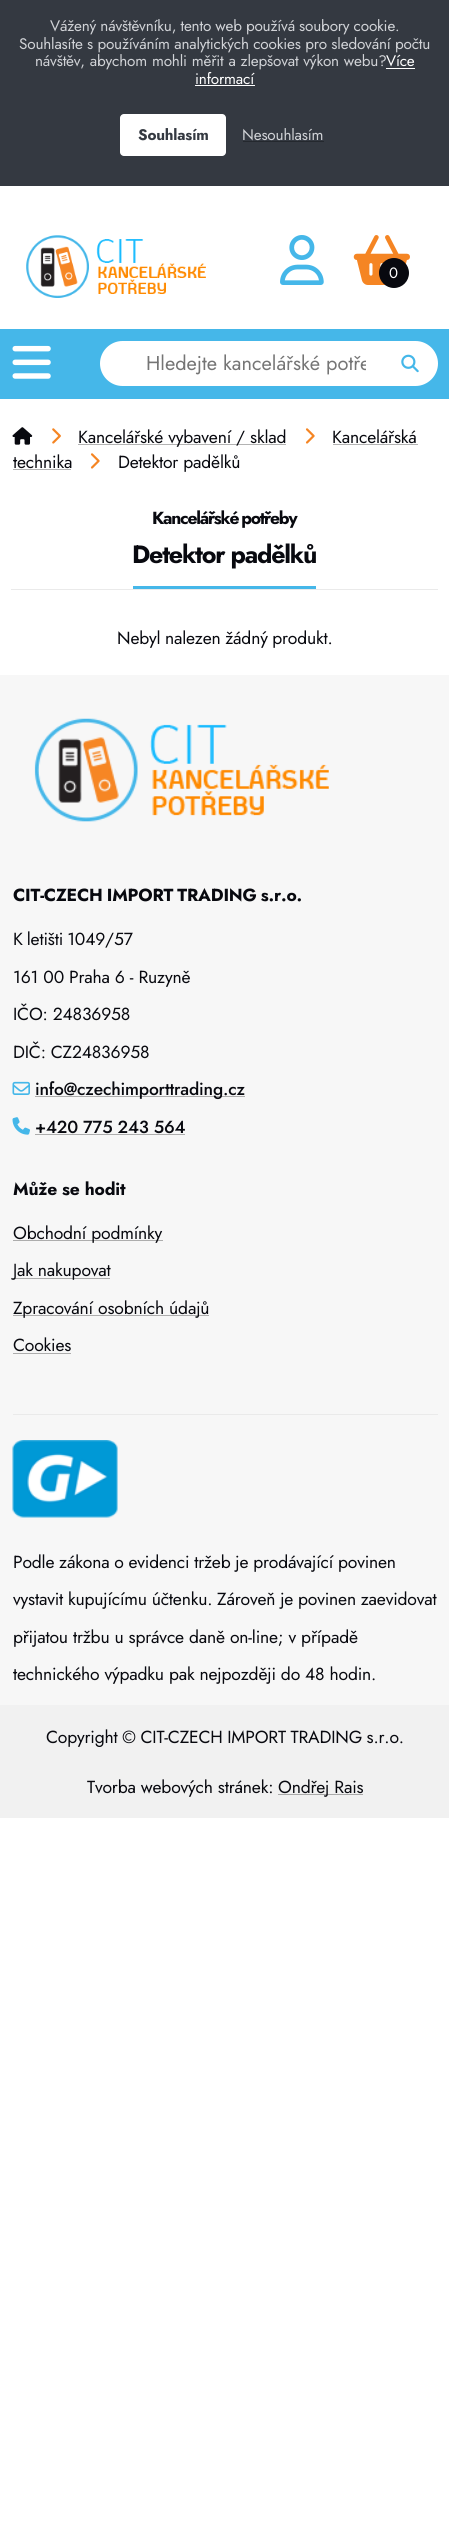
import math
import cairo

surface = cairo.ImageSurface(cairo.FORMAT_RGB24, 449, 2540)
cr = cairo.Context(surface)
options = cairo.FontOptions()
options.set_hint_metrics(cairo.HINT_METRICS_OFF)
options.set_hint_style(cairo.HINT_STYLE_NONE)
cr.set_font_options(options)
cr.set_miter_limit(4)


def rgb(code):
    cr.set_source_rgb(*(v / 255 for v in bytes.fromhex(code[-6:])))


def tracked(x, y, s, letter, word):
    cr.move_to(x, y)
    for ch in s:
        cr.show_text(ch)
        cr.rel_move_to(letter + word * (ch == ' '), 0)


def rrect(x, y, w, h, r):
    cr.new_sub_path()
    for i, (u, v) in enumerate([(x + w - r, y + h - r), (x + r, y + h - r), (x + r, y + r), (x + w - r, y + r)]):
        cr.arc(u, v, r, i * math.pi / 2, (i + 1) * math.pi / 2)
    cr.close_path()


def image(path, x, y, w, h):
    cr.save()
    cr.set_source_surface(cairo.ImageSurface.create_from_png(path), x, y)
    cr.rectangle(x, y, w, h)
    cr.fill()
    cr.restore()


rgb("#ffffff")
cr.paint()
for x, y, w, h, color in [
    (0, 0, 449, 186, "#343941"),
    (386, 68, 29, 1, "#ffffff"),
    (195, 85, 60, 1, "#ffffff"),
]:
    rgb(color)
    cr.rectangle(x, y, w, h)
    cr.fill()
rrect(120, 114, 106, 42, 4)
cr.fill()
rgb("#24282e")
cr.rectangle(243, 141, 81, 1)
cr.fill()
image("img/1.png", 26, 235, 180, 63)
image("img/2.png", 280, 235, 44, 50)
image("img/3.png", 353, 235, 57, 50)
rgb("#08090f")
cr.arc(394, 273, 15, 0, 2 * math.pi)
cr.fill()
rgb("#45b7e9")
cr.rectangle(0, 329, 449, 70)
cr.fill()
rgb("#ffffff")
cr.new_path()
cr.move_to(122.5, 342.5)
cr.line_to(386.5, 342.5)
cr.line_to(386.5, 384.5)
cr.line_to(122.5, 384.5)
cr.curve_to(111, 384.5, 101.5, 375, 101.5, 363.5)
cr.curve_to(101.5, 352, 111, 342.5, 122.5, 342.5)
cr.close_path()
cr.fill_preserve()
cr.set_line_width(3)
cr.stroke()
cr.new_path()
cr.move_to(389.5, 342.5)
cr.line_to(415.5, 342.5)
cr.curve_to(427, 342.5, 436.5, 352, 436.5, 363.5)
cr.curve_to(436.5, 375, 427, 384.5, 415.5, 384.5)
cr.line_to(389.5, 384.5)
cr.close_path()
cr.fill_preserve()
cr.stroke()
image("img/4.png", 401, 354, 18, 19)
image("img/5.png", 12, 345, 39, 34)
image("img/6.png", 12, 427, 21, 18)
image("img/7.png", 52, 428, 9, 16)
rgb("#b3b3b3")
cr.rectangle(78, 444, 208, 1)
cr.fill()
image("img/8.png", 305, 428, 10, 16)
cr.rectangle(333, 444, 85, 1)
cr.fill()
cr.rectangle(13, 469, 58, 1)
cr.fill()
image("img/8.png", 90, 453, 10, 16)
for x, y, w, h, color in [
    (11, 589, 427, 1, "#eaeaea"),
    (133, 586, 183, 3, "#45b7e9"),
    (0, 675, 449, 1030, "#f7f7f7"),
]:
    rgb(color)
    cr.rectangle(x, y, w, h)
    cr.fill()
image("img/9.png", 34, 718, 295, 104)
image("img/10.png", 12, 1081, 18, 14)
rgb("#adadad")
cr.rectangle(35, 1096, 210, 1)
cr.fill()
image("img/11.png", 12, 1117, 18, 18)
for x, y, w, h, color in [
    (35, 1134, 150, 1, "#adadad"),
    (13, 1240, 150, 1, "#adadad"),
    (13, 1278, 97, 1, "#adadad"),
    (13, 1315, 196, 1, "#adadad"),
    (13, 1353, 58, 1, "#adadad"),
    (13, 1414, 425, 1, "#eaeaea"),
]:
    rgb(color)
    cr.rectangle(x, y, w, h)
    cr.fill()
image("img/12.png", 12, 1440, 106, 78)
rgb("#f1f1f1")
cr.rectangle(0, 1705, 449, 113)
cr.fill()
rgb("#a9a9a9")
cr.rectangle(278, 1794, 85, 1)
cr.fill()
cr.select_font_face("Jost")
cr.set_font_size(15.3)
rgb("#d0d2d6")
tracked(50, 31, "Vážený návštěvníku, tento web používá soubory cookie.", -0.18, -0.25)
tracked(19, 49, "Souhlasíte s používáním analytických cookies pro sledování počtu", -0.18, 0)
tracked(35, 66, "návštěv, abychom mohli měřit a zlepšovat výkon webu?", -0.18, 0.5)
rgb("#ffffff")
tracked(386, 66, "Více", -0.18, 0)
tracked(195, 84, "informací", -0.18, 0)
cr.select_font_face("Jost", cairo.FONT_SLANT_NORMAL, cairo.FONT_WEIGHT_BOLD)
rgb("#343941")
tracked(138, 140, "Souhlasím", -0.18, 0)
cr.select_font_face("Jost")
rgb("#d0d2d6")
tracked(242, 140, "Nesouhlasím", -0.18, 0)
cr.set_font_size(15)
rgb("#ffffff")
tracked(389, 278, "0", -0.18, 0)
cr.save()
cr.rectangle(146, 349, 220, 29)
cr.clip()
cr.set_font_size(20)
rgb("#757575")
cr.move_to(146, 370)
cr.show_text("Hledejte kancelářské potře")
cr.restore()
cr.set_font_size(17.5)
rgb("#08090f")
for x, y, s in [
    (78, 443, "Kancelářské vybavení / sklad"),
    (332, 443, "Kancelářská"),
    (13, 468, "technika"),
    (118, 468, "Detektor padělků"),
]:
    tracked(x, y, s, -0.18, 0)
cr.select_font_face("Jost", cairo.FONT_SLANT_NORMAL, cairo.FONT_WEIGHT_BOLD)
tracked(152, 524, "Kancelářské potřeby", -1.25, -1)
cr.set_font_size(25)
tracked(132, 563, "Detektor padělků", -1.25, 0)
cr.select_font_face("Jost")
cr.set_font_size(17.5)
tracked(117, 644, "Nebyl nalezen žádný produkt.", -0.18, -0.5)
cr.select_font_face("Jost", cairo.FONT_SLANT_NORMAL, cairo.FONT_WEIGHT_BOLD)
tracked(13, 901, "CIT-CZECH IMPORT TRADING s.r.o.", -0.18, -1)
cr.select_font_face("Jost")
tracked(13, 945, "K letišti 1049/57", -0.18, -1)
for x, y, s in [
    (13, 983, "161 00 Praha 6 - Ruzyně"),
    (13, 1020, "IČO: 24836958"),
    (13, 1058, "DIČ: CZ24836958"),
]:
    tracked(x, y, s, -0.18, 0)
cr.select_font_face("Jost Medium")
tracked(35, 1095, "info@czechimporttrading.cz", -0.18, 0)
tracked(35, 1133, "+420 775 243 564", -0.18, 0)
cr.select_font_face("Jost", cairo.FONT_SLANT_NORMAL, cairo.FONT_WEIGHT_BOLD)
tracked(13, 1195, "Může se hodit", -0.18, 0)
cr.select_font_face("Jost")
for x, y, s in [
    (13, 1239, "Obchodní podmínky"),
    (13, 1276, "Jak nakupovat"),
    (13, 1314, "Zpracování osobních údajů"),
    (13, 1351, "Cookies"),
]:
    tracked(x, y, s, -0.18, 0)
tracked(13, 1568, "Podle zákona o evidenci tržeb je prodávající povinen", -0.18, -0.25)
tracked(13, 1605, "vystavit kupujícímu účtenku. Zároveň je povinen zaevidovat", -0.18, -0.25)
tracked(13, 1643, "přijatou tržbu u správce daně on-line; v případě", -0.18, 0)
tracked(13, 1680, "technického výpadku pak nejpozději do 48 hodin.", -0.18, 0)
tracked(46, 1743, "Copyright © CIT-CZECH IMPORT TRADING s.r.o.", -0.18, -0.5)
tracked(87, 1793, "Tvorba webových stránek:", -0.18, 0)
tracked(278, 1793, "Ondřej Rais", -0.18, 0)
surface.write_to_png("page.png")
